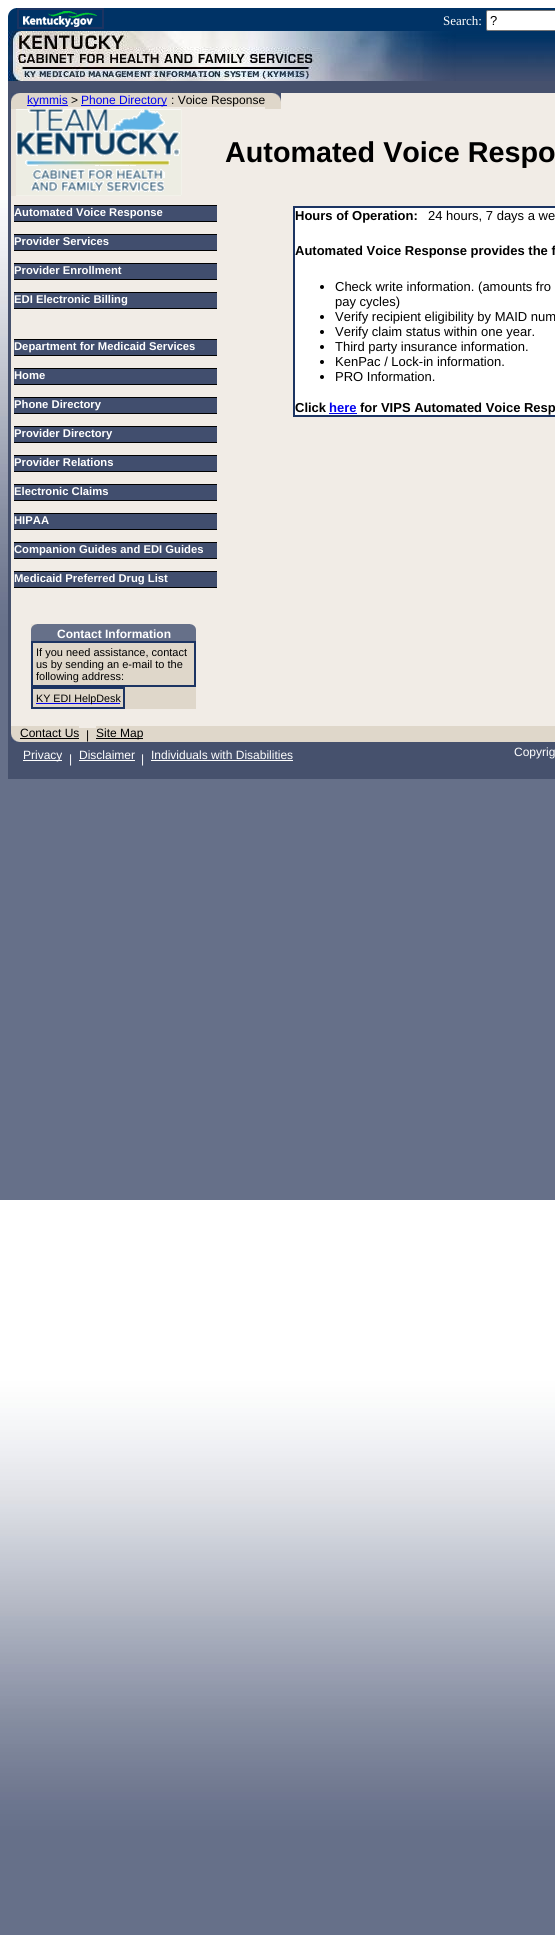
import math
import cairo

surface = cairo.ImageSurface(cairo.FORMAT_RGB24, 555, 1935)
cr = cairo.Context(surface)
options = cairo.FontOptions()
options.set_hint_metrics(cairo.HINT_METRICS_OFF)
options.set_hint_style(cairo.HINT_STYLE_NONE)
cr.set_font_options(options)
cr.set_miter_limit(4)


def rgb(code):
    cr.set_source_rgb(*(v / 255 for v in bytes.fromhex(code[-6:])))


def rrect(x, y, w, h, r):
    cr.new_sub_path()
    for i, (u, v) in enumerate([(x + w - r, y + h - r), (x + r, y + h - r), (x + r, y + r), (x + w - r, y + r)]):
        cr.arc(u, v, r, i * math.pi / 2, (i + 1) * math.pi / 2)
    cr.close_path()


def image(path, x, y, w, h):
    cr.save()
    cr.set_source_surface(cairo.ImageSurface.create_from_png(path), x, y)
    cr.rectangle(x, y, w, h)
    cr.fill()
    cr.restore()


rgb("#ffffff")
cr.paint()
image("img/1.png", 0, 200, 555, 1735)
rgb("#003366")
cr.rectangle(8, 8, 547, 23)
cr.fill()
image("img/2.png", 8, 8, 8, 9)
for x, y, w, h, color in [
    (17, 8, 87, 2, "#1c3462"),
    (102, 8, 2, 21, "#1c3462"),
    (17, 27, 87, 2, "#1c3462"),
    (17, 8, 2, 21, "#1c3462"),
]:
    rgb(color)
    cr.rectangle(x, y, w, h)
    cr.fill()
image("img/3.png", 23, 11, 74, 16)
rgb("#ffffff")
rrect(486.5, 10.5, 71, 20, 1.5)
cr.fill_preserve()
rgb("#767676")
cr.set_line_width(1)
cr.stroke()
image("img/4.png", 8, 31, 547, 50)
rgb("#f1ece6")
cr.rectangle(107, 93, 448, 619)
cr.fill()
image("img/5.png", 11, 107, 96, 89)
for x, y, w, h, color in [
    (8, 81, 547, 12, "#46516d"),
    (8, 776, 547, 3, "#46516d"),
    (8, 90, 3, 689, "#46516d"),
]:
    rgb(color)
    cr.rectangle(x, y, w, h)
    cr.fill()
image("img/6.png", 11, 93, 16, 16)
for x, y, w, h, color in [
    (27, 93, 238, 14, "#dfd7ca"),
    (27, 105, 41, 1, "#0000ee"),
    (81, 105, 86, 1, "#0000ee"),
]:
    rgb(color)
    cr.rectangle(x, y, w, h)
    cr.fill()
image("img/7.png", 265, 93, 16, 16)
image("img/8.png", 16, 109, 166, 87)
for x, y, w, h, color in [
    (11, 196, 96, 516, "#f1ece6"),
    (14, 206, 203, 15, "#414e6e"),
    (14, 205, 203, 1, "#000000"),
    (14, 221, 203, 1, "#000000"),
    (14, 235, 203, 15, "#414e6e"),
    (14, 234, 203, 1, "#000000"),
    (14, 250, 203, 1, "#000000"),
    (14, 264, 203, 15, "#414e6e"),
    (14, 263, 203, 1, "#000000"),
    (14, 279, 203, 1, "#000000"),
    (14, 293, 203, 15, "#414e6e"),
    (14, 292, 203, 1, "#000000"),
    (14, 308, 203, 1, "#000000"),
    (14, 340, 203, 15, "#414e6e"),
    (14, 339, 203, 1, "#000000"),
    (14, 355, 203, 1, "#000000"),
    (14, 369, 203, 15, "#414e6e"),
    (14, 368, 203, 1, "#000000"),
    (14, 384, 203, 1, "#000000"),
    (14, 398, 203, 15, "#414e6e"),
    (14, 397, 203, 1, "#000000"),
    (14, 413, 203, 1, "#000000"),
    (14, 427, 203, 15, "#414e6e"),
    (14, 426, 203, 1, "#000000"),
    (14, 442, 203, 1, "#000000"),
    (14, 456, 203, 15, "#414e6e"),
    (14, 455, 203, 1, "#000000"),
    (14, 471, 203, 1, "#000000"),
    (14, 485, 203, 15, "#414e6e"),
    (14, 484, 203, 1, "#000000"),
    (14, 500, 203, 1, "#000000"),
    (14, 514, 203, 15, "#414e6e"),
    (14, 513, 203, 1, "#000000"),
    (14, 529, 203, 1, "#000000"),
    (14, 543, 203, 15, "#414e6e"),
    (14, 542, 203, 1, "#000000"),
    (14, 558, 203, 1, "#000000"),
    (14, 572, 203, 15, "#414e6e"),
    (14, 571, 203, 1, "#000000"),
    (14, 587, 203, 1, "#000000"),
    (33, 643, 163, 66, "#dfd7ca"),
]:
    rgb(color)
    cr.rectangle(x, y, w, h)
    cr.fill()
image("img/9.png", 31, 624, 165, 17)
cr.rectangle(32, 642, 163, 44)
rgb("#1c3462")
cr.set_line_width(2)
cr.stroke()
cr.rectangle(32, 688, 92, 20)
cr.stroke()
rgb("#0000ee")
cr.rectangle(36, 703, 84, 1)
cr.fill()
rgb("#ffffff")
cr.rectangle(294, 207, 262, 209)
cr.fill_preserve()
rgb("#1c3462")
cr.stroke()
rgb("#000000")
cr.arc(322, 287, 2, 0, 2 * math.pi)
cr.fill()
cr.arc(322, 317, 2, 0, 2 * math.pi)
cr.fill()
cr.arc(322, 332, 2, 0, 2 * math.pi)
cr.fill()
cr.arc(322, 347, 2, 0, 2 * math.pi)
cr.fill()
cr.arc(322, 362, 2, 0, 2 * math.pi)
cr.fill()
cr.arc(322, 377, 2, 0, 2 * math.pi)
cr.fill()
for x, y, w, h, color in [
    (329, 413, 28, 1, "#0000ee"),
    (11, 712, 544, 16, "#f1ece6"),
    (11, 726, 9, 7, "#dfd7ca"),
    (20, 726, 59, 16, "#dfd7ca"),
    (20, 738, 59, 1, "#000000"),
    (79, 728, 17, 14, "#dfd7ca"),
    (96, 726, 459, 16, "#dfd7ca"),
    (96, 738, 47, 1, "#000000"),
]:
    rgb(color)
    cr.rectangle(x, y, w, h)
    cr.fill()
image("img/10.png", 11, 733, 9, 9)
for x, y, w, h, color in [
    (11, 742, 544, 34, "#46516d"),
    (23, 760, 39, 1, "#ffffff"),
    (79, 760, 56, 1, "#ffffff"),
    (151, 760, 142, 1, "#ffffff"),
]:
    rgb(color)
    cr.rectangle(x, y, w, h)
    cr.fill()
cr.select_font_face("Liberation Serif")
cr.set_font_size(13)
cr.move_to(443, 25)
cr.show_text("Search:")
cr.select_font_face("Liberation Sans")
rgb("#000000")
cr.move_to(490, 25)
cr.show_text("?")
cr.set_font_size(12)
rgb("#0000ee")
cr.move_to(27, 104)
cr.show_text("kymmis")
rgb("#000000")
cr.move_to(71, 104)
cr.show_text(">")
rgb("#0000ee")
cr.move_to(81, 104)
cr.show_text("Phone Directory")
rgb("#000000")
cr.move_to(171, 104)
cr.show_text(": Voice Response")
cr.select_font_face("Liberation Sans", cairo.FONT_SLANT_NORMAL, cairo.FONT_WEIGHT_BOLD)
cr.set_font_size(28.75)
cr.move_to(225, 162)
cr.show_text("Automated Voice Respo")
cr.set_font_size(11.25)
rgb("#ffffff")
for x, y, s in [
    (14, 216, "Automated Voice Response"),
    (14, 245, "Provider Services"),
    (14, 274, "Provider Enrollment"),
    (14, 303, "EDI Electronic Billing"),
    (14, 350, "Department for Medicaid Services"),
    (14, 379, "Home"),
    (14, 408, "Phone Directory"),
    (14, 437, "Provider Directory"),
    (14, 466, "Provider Relations"),
    (14, 495, "Electronic Claims"),
    (14, 524, "HIPAA"),
    (14, 553, "Companion Guides and EDI Guides"),
    (14, 582, "Medicaid Preferred Drug List"),
]:
    cr.move_to(x, y)
    cr.show_text(s)
cr.set_font_size(12)
cr.move_to(57, 638)
cr.show_text("Contact Information")
cr.select_font_face("Liberation Sans")
cr.set_font_size(11)
rgb("#000000")
for x, y, s in [
    (36, 656, "If you need assistance, contact"),
    (36, 668, "us by sending an e-mail to the"),
    (36, 680, "following address:"),
]:
    cr.move_to(x, y)
    cr.show_text(s)
cr.set_font_size(10.75)
cr.move_to(36, 702)
cr.show_text("KY EDI HelpDesk")
cr.select_font_face("Liberation Sans", cairo.FONT_SLANT_NORMAL, cairo.FONT_WEIGHT_BOLD)
cr.set_font_size(13)
cr.move_to(295, 220)
cr.show_text("Hours of Operation:")
cr.select_font_face("Liberation Sans")
cr.move_to(428, 220)
cr.show_text("24 hours, 7 days a we")
cr.select_font_face("Liberation Sans", cairo.FONT_SLANT_NORMAL, cairo.FONT_WEIGHT_BOLD)
cr.move_to(295, 255)
cr.show_text("Automated Voice Response provides the f")
cr.select_font_face("Liberation Sans")
for x, y, s in [
    (335, 291, "Check write information. (amounts fro"),
    (335, 306, "pay cycles)"),
    (335, 321, "Verify recipient eligibility by MAID num"),
    (335, 336, "Verify claim status within one year."),
    (335, 351, "Third party insurance information."),
    (335, 366, "KenPac / Lock-in information."),
    (335, 381, "PRO Information."),
]:
    cr.move_to(x, y)
    cr.show_text(s)
cr.select_font_face("Liberation Sans", cairo.FONT_SLANT_NORMAL, cairo.FONT_WEIGHT_BOLD)
cr.move_to(295, 412)
cr.show_text("Click")
rgb("#0000ee")
cr.move_to(329, 412)
cr.show_text("here")
rgb("#000000")
cr.move_to(360, 412)
cr.show_text("for VIPS Automated Voice Resp")
cr.select_font_face("Liberation Sans")
cr.set_font_size(12)
for x, y, s in [
    (20, 737, "Contact Us"),
    (86, 739, "|"),
    (96, 737, "Site Map"),
]:
    cr.move_to(x, y)
    cr.show_text(s)
rgb("#ffffff")
cr.move_to(23, 759)
cr.show_text("Privacy")
cr.move_to(69, 763)
cr.show_text("|")
rgb("#46516d")
cr.rectangle(62, 752, 1, 1)
cr.fill()
rgb("#ffffff")
for x, y, s in [
    (79, 759, "Disclaimer"),
    (141, 763, "|"),
    (151, 759, "Individuals with Disabilities"),
    (514, 756, "Copyrig"),
]:
    cr.move_to(x, y)
    cr.show_text(s)
surface.write_to_png("page.png")
